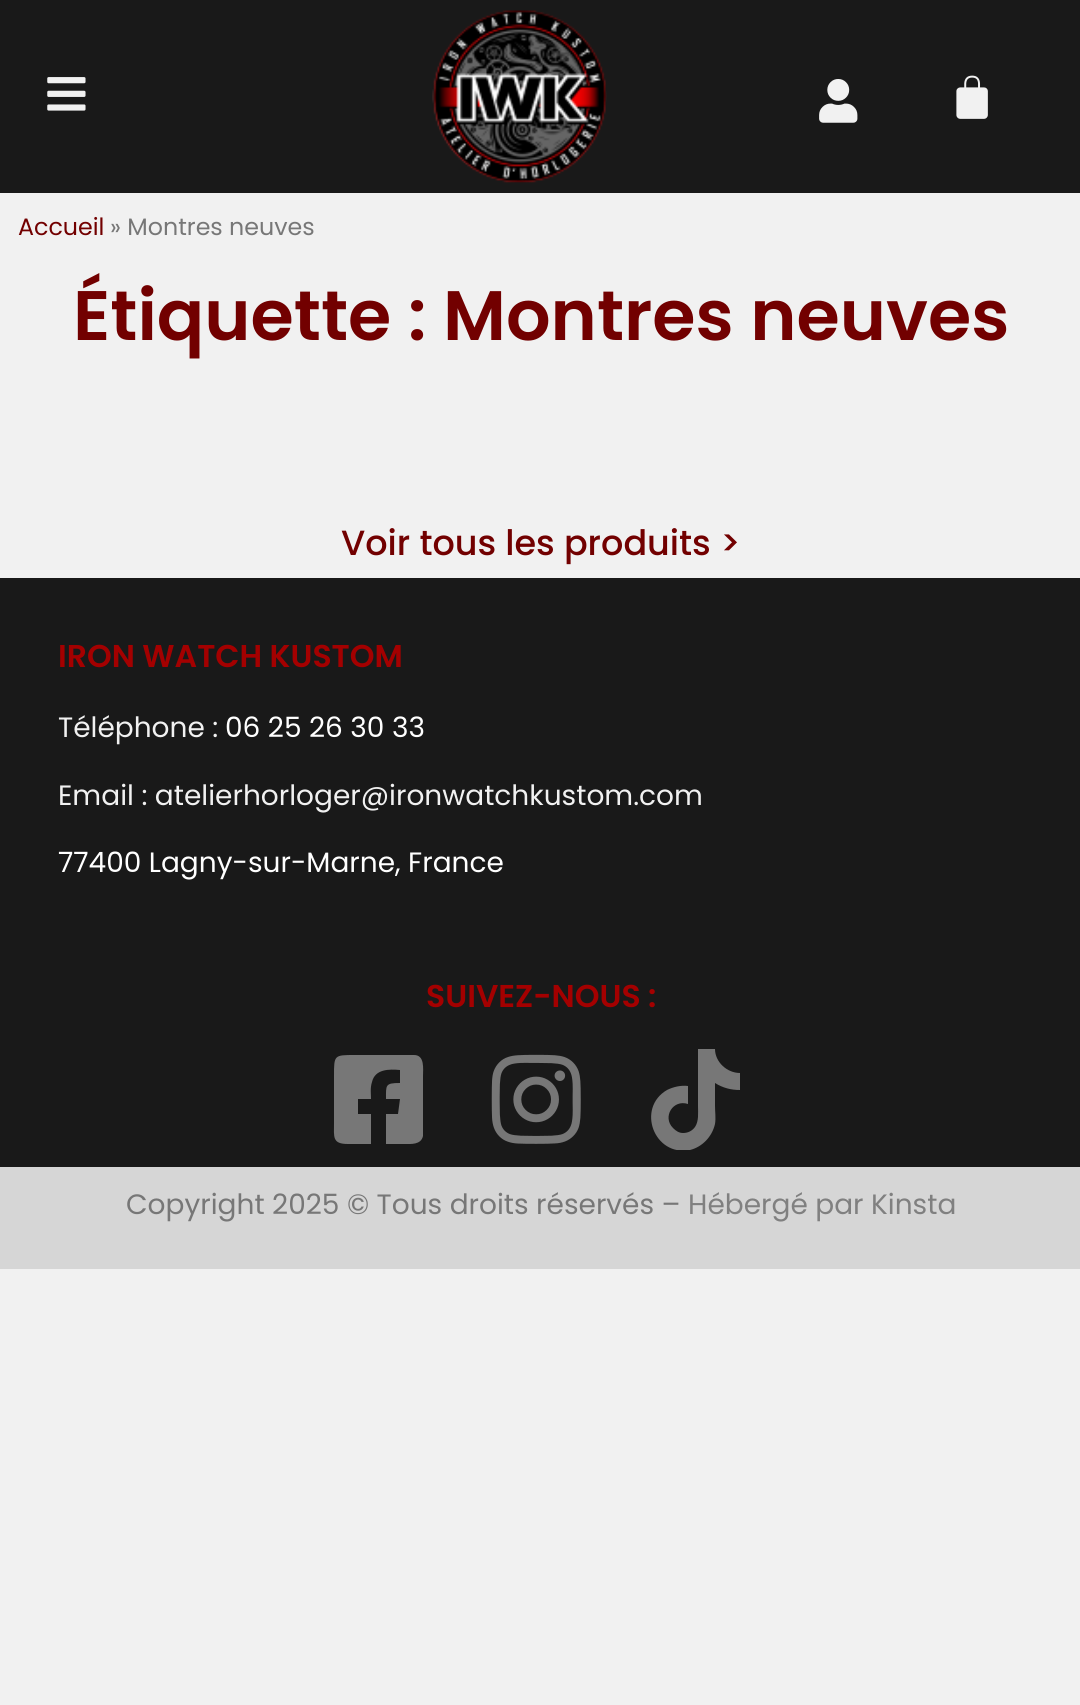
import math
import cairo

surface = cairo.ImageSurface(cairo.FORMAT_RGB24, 1080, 1705)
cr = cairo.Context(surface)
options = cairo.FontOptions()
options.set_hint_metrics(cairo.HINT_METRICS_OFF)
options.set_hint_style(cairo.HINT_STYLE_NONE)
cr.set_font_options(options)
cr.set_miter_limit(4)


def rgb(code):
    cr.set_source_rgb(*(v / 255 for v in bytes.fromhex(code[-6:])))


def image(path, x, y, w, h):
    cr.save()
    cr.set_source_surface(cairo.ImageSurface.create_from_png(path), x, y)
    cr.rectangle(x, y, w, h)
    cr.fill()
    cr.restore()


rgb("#f1f1f1")
cr.paint()
rgb("#191919")
cr.rectangle(0, 0, 1080, 193)
cr.fill()
image("img/1.png", 47, 77, 39, 34)
image("img/2.png", 432, 10, 175, 173)
image("img/3.png", 819, 79, 39, 44)
image("img/4.png", 956, 75, 32, 44)
cr.rectangle(0, 578, 1080, 589)
cr.fill()
rgb("#777777")
cr.new_path()
cr.move_to(414, 1055)
cr.curve_to(425, 1055, 423, 1069, 423, 1076)
cr.line_to(423, 1136)
cr.curve_to(421, 1145, 411, 1144, 404, 1144)
cr.line_to(386, 1144)
cr.line_to(386, 1114)
cr.line_to(398, 1114)
cr.line_to(400, 1099)
cr.line_to(386, 1099)
cr.curve_to(386, 1085, 385, 1083, 400, 1083)
cr.line_to(400, 1070)
cr.curve_to(389, 1069, 375, 1069, 372, 1082)
cr.curve_to(370, 1088, 371, 1094, 371, 1099)
cr.line_to(358, 1099)
cr.line_to(358, 1114)
cr.line_to(371, 1114)
cr.line_to(371, 1144)
cr.line_to(348, 1144)
cr.curve_to(332, 1144, 334, 1137, 334, 1123)
cr.line_to(334, 1076)
cr.curve_to(334, 1055, 334, 1055, 355, 1055)
cr.close_path()
cr.fill()
image("img/5.png", 491, 1054, 90, 90)
cr.save()
cr.rectangle(18, 1048, 1046, 102)
cr.clip()
cr.new_path()
cr.move_to(740, 1090)
cr.curve_to(731, 1090, 723, 1088, 715, 1083)
cr.line_to(715, 1106)
cr.curve_to(715, 1112, 716, 1118, 715, 1124)
cr.curve_to(712, 1137, 702, 1147, 690, 1150)
cr.curve_to(654, 1157, 636, 1108, 667, 1090)
cr.curve_to(673, 1087, 681, 1085, 688, 1086)
cr.line_to(688, 1104)
cr.curve_to(673, 1099, 662, 1117, 673, 1128)
cr.curve_to(676, 1131, 679, 1133, 683, 1133)
cr.curve_to(688, 1133, 692, 1131, 695, 1127)
cr.curve_to(699, 1121, 698, 1113, 698, 1106)
cr.line_to(698, 1049)
cr.line_to(715, 1049)
cr.curve_to(715, 1062, 727, 1073, 740, 1073)
cr.close_path()
cr.fill()
cr.restore()
rgb("#d6d6d6")
cr.rectangle(0, 1167, 1080, 102)
cr.fill()
cr.select_font_face("Poppins")
cr.set_font_size(23.75)
rgb("#720000")
cr.move_to(18, 235)
cr.show_text("Accueil")
rgb("#777777")
cr.move_to(110, 235)
cr.show_text("» Montres neuves")
cr.select_font_face("Poppins SemiBold")
cr.set_font_size(70)
rgb("#720000")
cr.move_to(73, 340)
cr.show_text("Étiquette : Montres neuves")
cr.select_font_face("Poppins Medium")
cr.set_font_size(35)
cr.move_to(341, 555)
cr.show_text("Voir tous les produits >")
cr.select_font_face("Poppins SemiBold")
cr.set_font_size(31.5)
rgb("#a40000")
cr.move_to(58, 667)
cr.show_text("IRON WATCH KUSTOM")
cr.select_font_face("Poppins")
cr.set_font_size(28)
rgb("#f1f1f1")
cr.move_to(58, 737)
cr.show_text("Téléphone :")
rgb("#ffffff")
cr.move_to(225, 737)
cr.show_text("06 25 26 30 33")
rgb("#f1f1f1")
cr.move_to(58, 805)
cr.show_text("Email : atelierhorloger@ironwatchkustom.com")
rgb("#ffffff")
cr.move_to(58, 872)
cr.show_text("77400 Lagny-sur-Marne, France")
cr.select_font_face("Poppins SemiBold")
cr.set_font_size(31.5)
rgb("#a40000")
cr.move_to(426, 1007)
cr.show_text("SUIVEZ-NOUS :")
cr.select_font_face("Poppins")
cr.set_font_size(28)
rgb("#777777")
cr.move_to(126, 1214)
cr.show_text("Copyright 2025 © Tous droits réservés –")
rgb("#808080")
cr.move_to(688, 1214)
cr.show_text("Hébergé par Kinsta")
surface.write_to_png("page.png")
